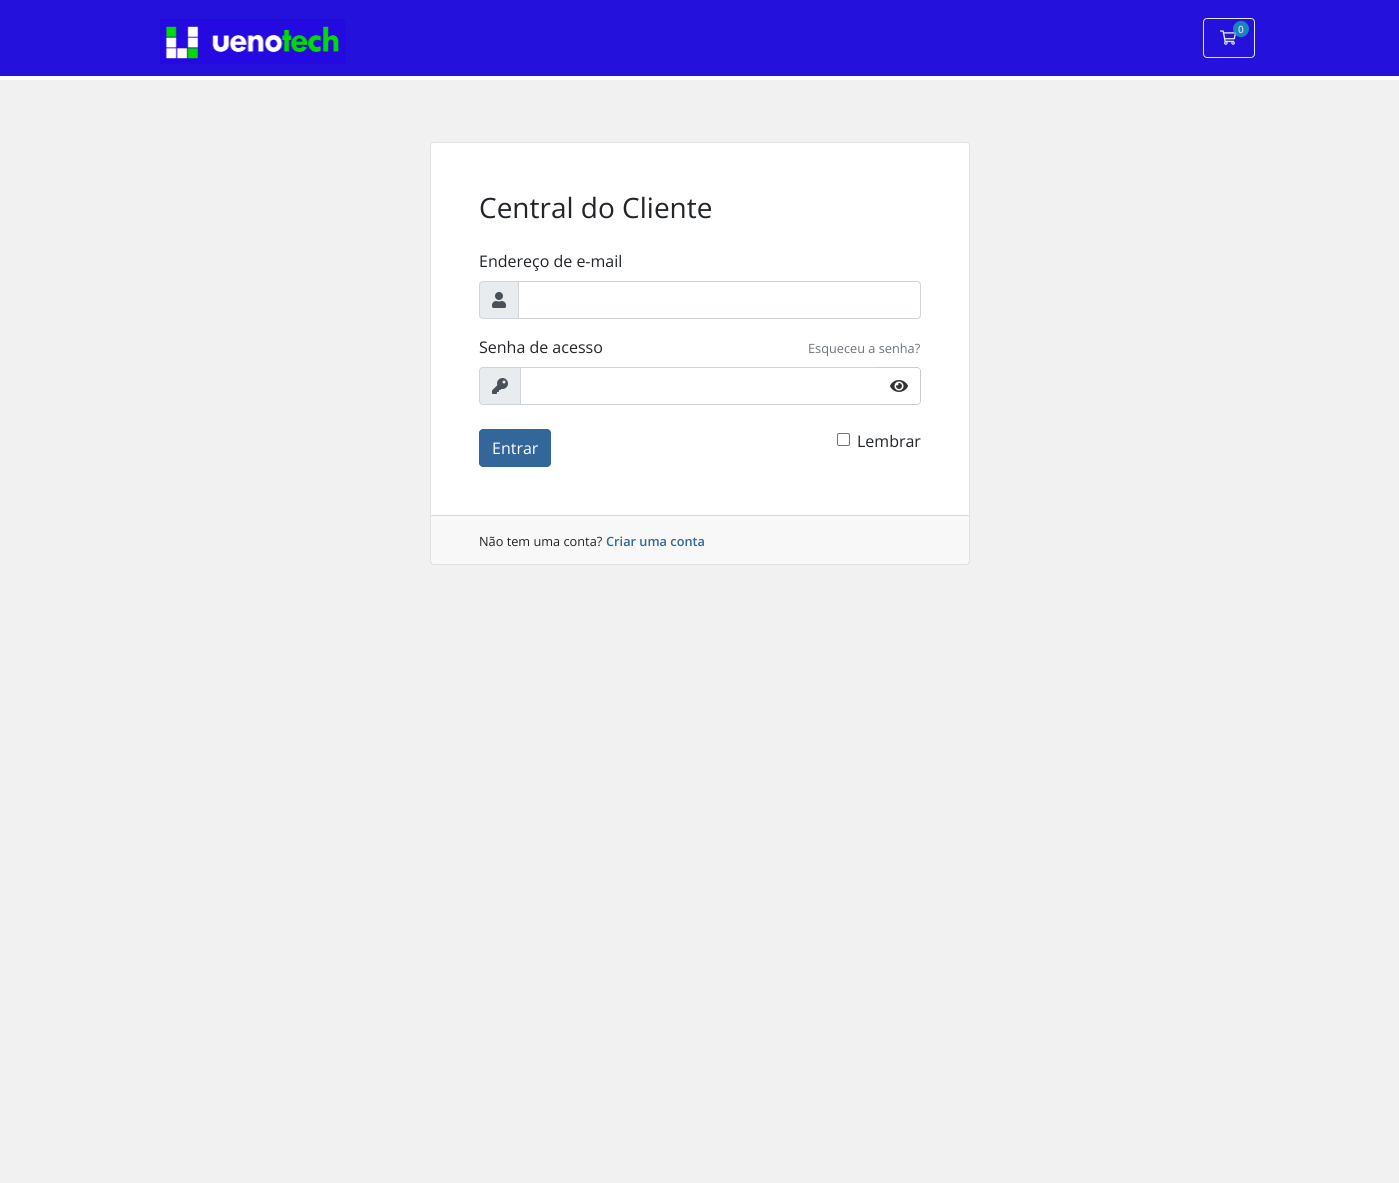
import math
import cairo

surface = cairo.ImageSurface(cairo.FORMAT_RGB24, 1399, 1183)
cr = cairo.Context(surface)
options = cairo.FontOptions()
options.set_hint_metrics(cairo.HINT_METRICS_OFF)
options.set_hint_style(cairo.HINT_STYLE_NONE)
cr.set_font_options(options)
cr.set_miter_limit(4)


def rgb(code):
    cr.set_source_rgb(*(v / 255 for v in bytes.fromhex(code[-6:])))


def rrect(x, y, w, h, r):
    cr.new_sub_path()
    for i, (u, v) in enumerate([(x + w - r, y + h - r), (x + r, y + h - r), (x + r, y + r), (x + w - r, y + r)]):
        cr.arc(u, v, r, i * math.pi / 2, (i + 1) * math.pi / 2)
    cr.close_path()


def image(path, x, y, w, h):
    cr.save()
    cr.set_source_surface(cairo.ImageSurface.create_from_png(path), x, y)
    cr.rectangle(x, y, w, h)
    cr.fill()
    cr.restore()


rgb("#f1f1f1")
cr.paint()
rgb("#ffffff")
cr.rectangle(0, 76, 1399, 4)
cr.fill()
rgb("#2411dc")
cr.rectangle(0, 0, 1399, 76)
cr.fill()
image("img/1.png", 160, 19, 186, 45)
rrect(1203.5, 18.5, 51, 39, 3.5)
rgb("#e5e5e5")
cr.set_line_width(1)
cr.stroke()
image("img/2.png", 1220, 30, 17, 15)
cr.set_source_rgba(0.09, 0.635, 0.722, 0.8)
cr.arc(1241, 29, 8, 0, 2 * math.pi)
cr.fill()
rgb("#ffffff")
rrect(430, 142, 540, 423, 4)
cr.fill()
rrect(430.5, 142.5, 539, 422, 3.5)
cr.set_source_rgba(0, 0, 0, 0.12)
cr.stroke()
rgb("#e9ecef")
cr.new_path()
cr.move_to(483, 281.5)
cr.line_to(518.5, 281.5)
cr.line_to(518.5, 318.5)
cr.line_to(483, 318.5)
cr.curve_to(481, 318.5, 479.5, 317, 479.5, 315)
cr.line_to(479.5, 285)
cr.curve_to(479.5, 283, 481, 281.5, 483, 281.5)
cr.close_path()
cr.fill_preserve()
rgb("#ced4da")
cr.stroke()
image("img/3.png", 492, 292, 14, 16)
cr.new_path()
cr.move_to(518.5, 281.5)
cr.line_to(917, 281.5)
cr.curve_to(919, 281.5, 920.5, 283, 920.5, 285)
cr.line_to(920.5, 315)
cr.curve_to(920.5, 317, 919, 318.5, 917, 318.5)
cr.line_to(518.5, 318.5)
cr.close_path()
cr.stroke()
rgb("#e9ecef")
cr.new_path()
cr.move_to(483, 367.5)
cr.line_to(520.5, 367.5)
cr.line_to(520.5, 404.5)
cr.line_to(483, 404.5)
cr.curve_to(481, 404.5, 479.5, 403, 479.5, 401)
cr.line_to(479.5, 371)
cr.curve_to(479.5, 369, 481, 367.5, 483, 367.5)
cr.close_path()
cr.fill_preserve()
rgb("#ced4da")
cr.stroke()
image("img/4.png", 492, 378, 16, 16)
cr.rectangle(520.5, 367.5, 358, 37)
cr.stroke()
rgb("#ffffff")
cr.new_path()
cr.move_to(878, 367)
cr.line_to(917, 367)
cr.curve_to(919, 367, 921, 369, 921, 371)
cr.line_to(921, 401)
cr.curve_to(921, 403, 919, 405, 917, 405)
cr.line_to(878, 405)
cr.close_path()
cr.fill()
rgb("#cccccc")
cr.set_fill_rule(cairo.FILL_RULE_EVEN_ODD)
cr.new_path()
cr.move_to(878, 367)
cr.line_to(917, 367)
cr.curve_to(919, 367, 921, 369, 921, 371)
cr.line_to(921, 401)
cr.curve_to(921, 403, 919, 405, 917, 405)
cr.line_to(878, 405)
cr.close_path()
cr.move_to(878, 368)
cr.line_to(917, 368)
cr.curve_to(919, 368, 920, 369, 920, 371)
cr.line_to(920, 401)
cr.curve_to(920, 403, 919, 404, 917, 404)
cr.line_to(878, 404)
cr.close_path()
cr.fill()
image("img/5.png", 890, 380, 18, 12)
rgb("#336699")
rrect(479.5, 429.5, 71, 37, 3.5)
cr.fill_preserve()
cr.stroke()
rrect(837.5, 433.5, 12, 12, 1.5)
rgb("#767676")
cr.stroke()
cr.set_source_rgba(0, 0, 0, 0.03)
cr.rectangle(431, 516, 538, 48)
cr.fill()
rgb("#d8d8d8")
cr.rectangle(431, 515, 538, 1)
cr.fill()
cr.select_font_face("Open Sans SemiBold")
cr.set_font_size(10)
rgb("#d3cff8")
cr.move_to(1238, 33)
cr.show_text("0")
cr.select_font_face("Open Sans")
cr.set_font_size(28)
rgb("#212529")
cr.move_to(479, 218)
cr.show_text("Central do Cliente")
cr.set_font_size(16)
cr.move_to(479, 267)
cr.show_text("Endereço de e-mail")
cr.move_to(479, 353)
cr.show_text("Senha de acesso")
cr.set_font_size(12.75)
rgb("#6c757d")
cr.move_to(808, 353)
cr.show_text("Esqueceu a senha?")
cr.set_font_size(16)
rgb("#ffffff")
cr.move_to(492, 454)
cr.show_text("Entrar")
rgb("#212529")
cr.move_to(857, 447)
cr.show_text("Lembrar")
cr.set_font_size(12.75)
cr.move_to(479, 546)
cr.show_text("Não tem uma conta?")
cr.select_font_face("Open Sans SemiBold")
rgb("#336699")
cr.move_to(606, 546)
cr.show_text("Criar uma conta")
surface.write_to_png("page.png")
